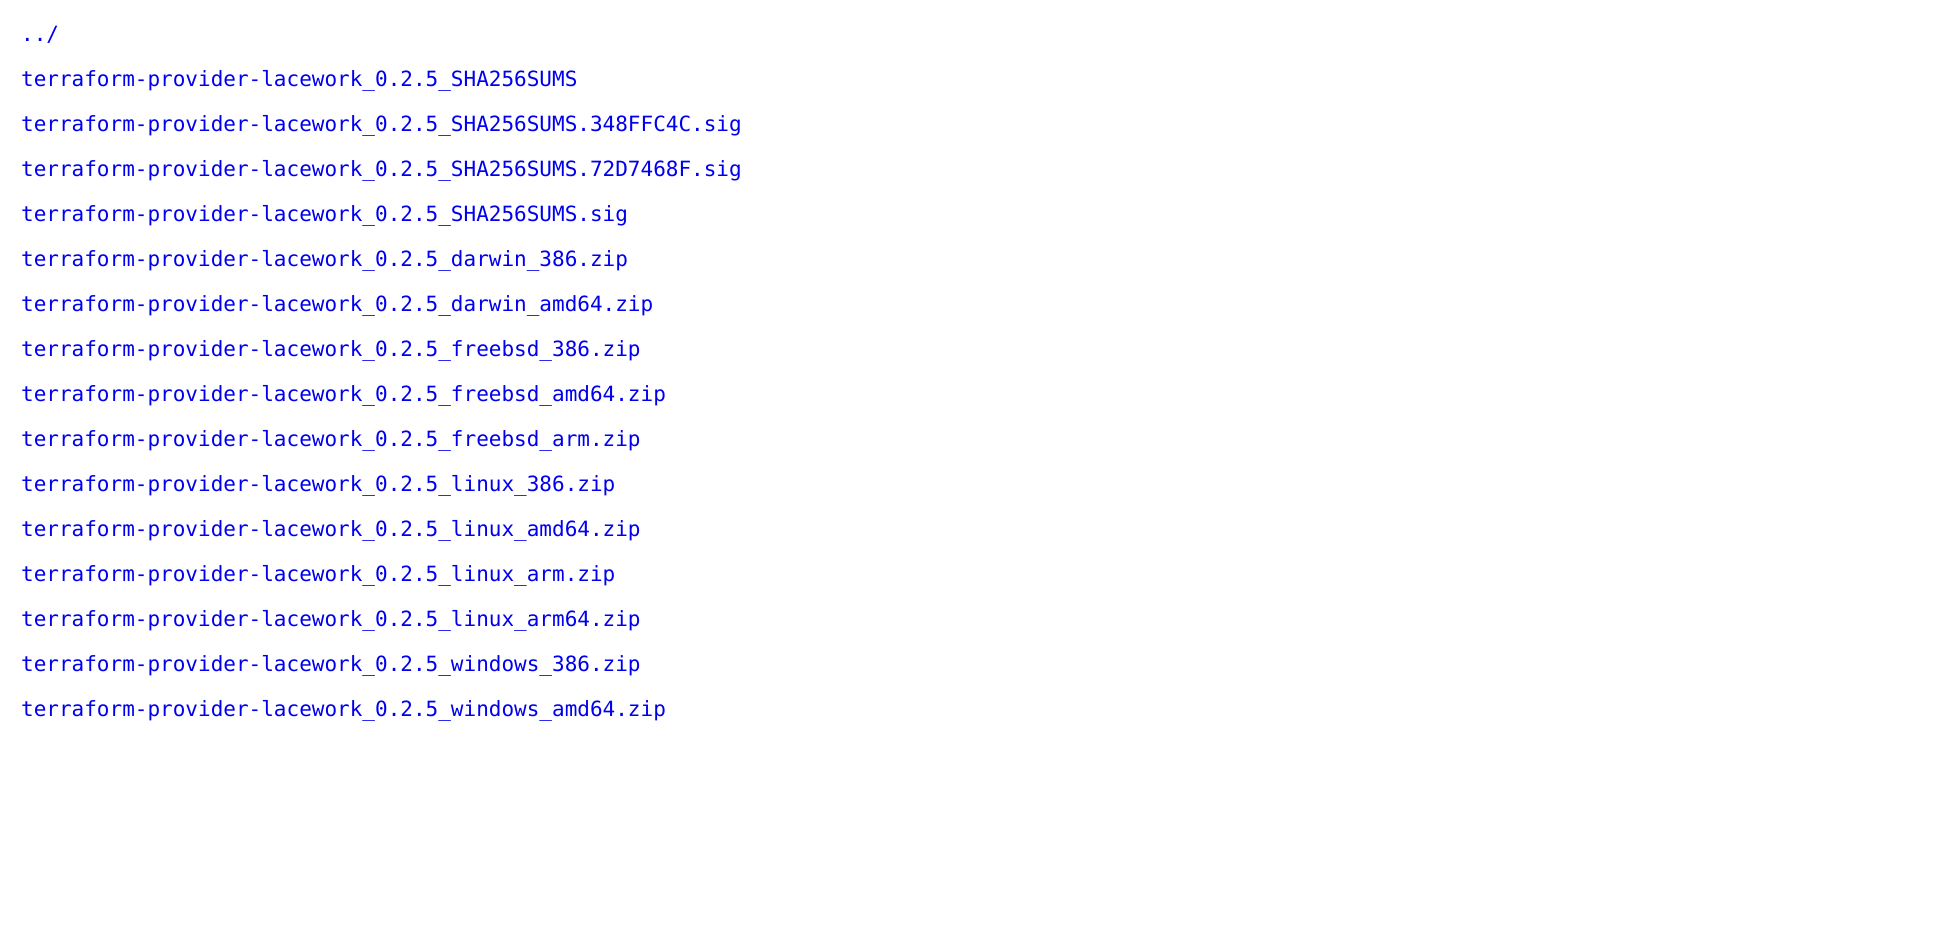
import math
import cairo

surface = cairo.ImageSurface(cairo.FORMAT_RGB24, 1957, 931)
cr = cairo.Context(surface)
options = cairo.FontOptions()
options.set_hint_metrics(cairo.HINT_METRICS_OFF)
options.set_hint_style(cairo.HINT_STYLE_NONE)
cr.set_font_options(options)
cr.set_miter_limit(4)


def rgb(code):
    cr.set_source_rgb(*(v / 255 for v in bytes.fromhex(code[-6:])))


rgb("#ffffff")
cr.paint()
cr.select_font_face("DejaVu Sans Mono")
cr.set_font_size(21)
rgb("#0000ee")
for x, y, s in [
    (21, 41, "../"),
    (21, 86, "terraform-provider-lacework_0.2.5_SHA256SUMS"),
    (21, 131, "terraform-provider-lacework_0.2.5_SHA256SUMS.348FFC4C.sig"),
    (21, 176, "terraform-provider-lacework_0.2.5_SHA256SUMS.72D7468F.sig"),
    (21, 221, "terraform-provider-lacework_0.2.5_SHA256SUMS.sig"),
    (21, 266, "terraform-provider-lacework_0.2.5_darwin_386.zip"),
    (21, 311, "terraform-provider-lacework_0.2.5_darwin_amd64.zip"),
    (21, 356, "terraform-provider-lacework_0.2.5_freebsd_386.zip"),
    (21, 401, "terraform-provider-lacework_0.2.5_freebsd_amd64.zip"),
    (21, 446, "terraform-provider-lacework_0.2.5_freebsd_arm.zip"),
    (21, 491, "terraform-provider-lacework_0.2.5_linux_386.zip"),
    (21, 536, "terraform-provider-lacework_0.2.5_linux_amd64.zip"),
    (21, 581, "terraform-provider-lacework_0.2.5_linux_arm.zip"),
    (21, 626, "terraform-provider-lacework_0.2.5_linux_arm64.zip"),
    (21, 671, "terraform-provider-lacework_0.2.5_windows_386.zip"),
    (21, 716, "terraform-provider-lacework_0.2.5_windows_amd64.zip"),
]:
    cr.move_to(x, y)
    cr.show_text(s)
surface.write_to_png("page.png")
